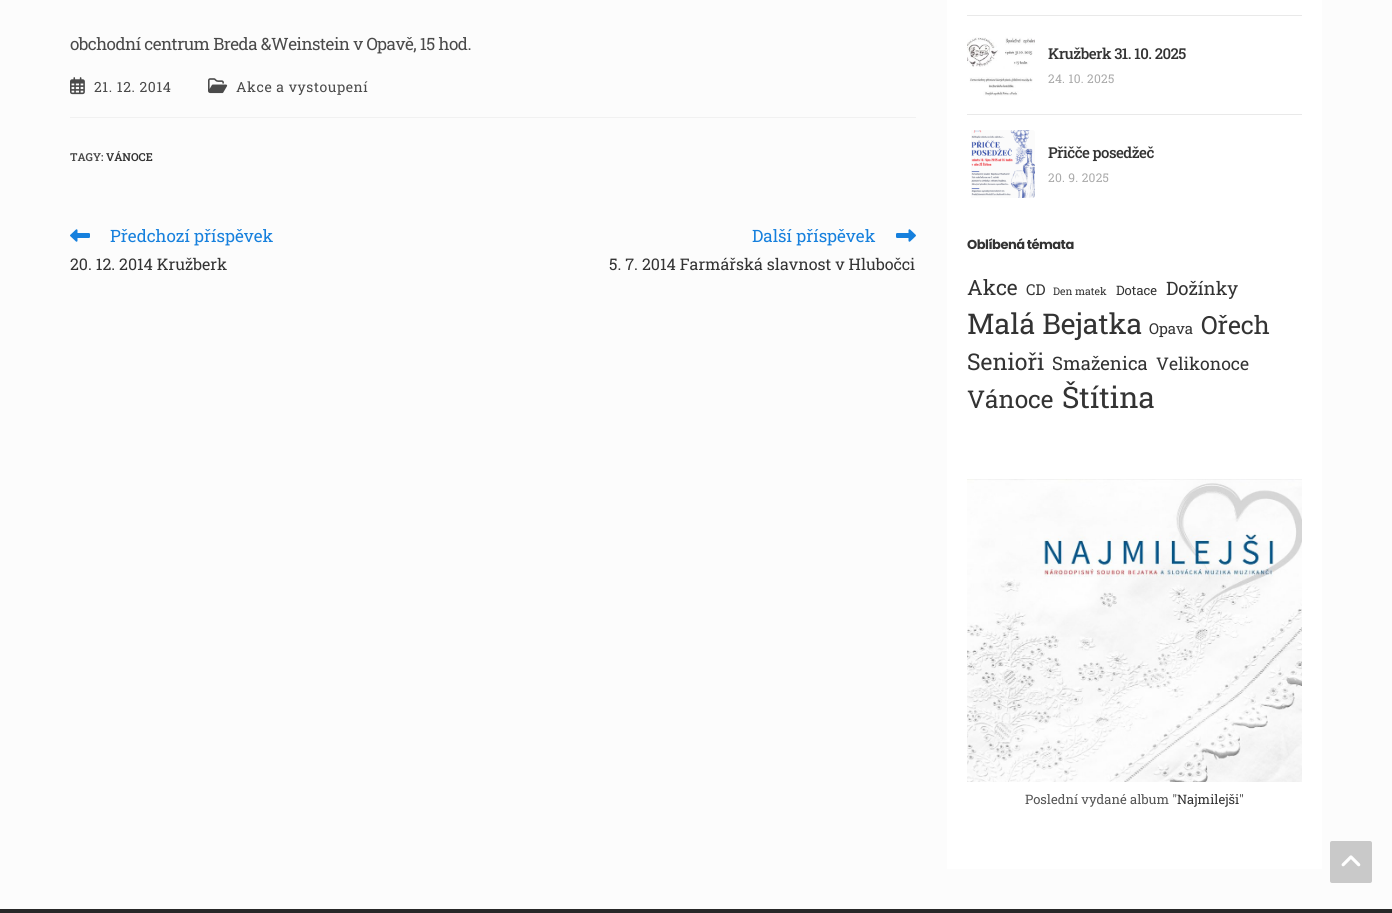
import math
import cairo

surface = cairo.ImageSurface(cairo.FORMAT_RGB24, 1392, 913)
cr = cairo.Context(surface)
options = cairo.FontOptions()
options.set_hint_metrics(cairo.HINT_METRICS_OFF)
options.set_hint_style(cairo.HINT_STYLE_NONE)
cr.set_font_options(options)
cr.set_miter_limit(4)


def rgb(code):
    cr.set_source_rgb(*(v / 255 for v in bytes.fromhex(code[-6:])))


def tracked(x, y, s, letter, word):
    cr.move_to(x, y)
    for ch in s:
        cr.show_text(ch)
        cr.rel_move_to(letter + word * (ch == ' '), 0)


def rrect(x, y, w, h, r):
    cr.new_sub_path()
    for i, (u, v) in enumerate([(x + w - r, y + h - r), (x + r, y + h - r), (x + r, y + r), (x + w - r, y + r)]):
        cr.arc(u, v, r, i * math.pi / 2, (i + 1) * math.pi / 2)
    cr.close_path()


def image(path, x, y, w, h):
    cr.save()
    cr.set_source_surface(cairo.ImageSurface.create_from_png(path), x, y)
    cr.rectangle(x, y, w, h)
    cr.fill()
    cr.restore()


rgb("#fcfcfc")
cr.paint()
rgb("#f1f1f1")
cr.rectangle(70, 117, 846, 1)
cr.fill()
image("img/1.png", 70, 77, 15, 18)
image("img/2.png", 208, 78, 20, 16)
image("img/3.png", 70, 229, 20, 13)
image("img/4.png", 896, 229, 20, 13)
rgb("#ffffff")
cr.rectangle(947, 0, 375, 869)
cr.fill()
rgb("#e9e9e9")
cr.rectangle(967, 15, 335, 1)
cr.fill()
image("img/5.png", 967, 37, 68, 59)
cr.rectangle(967, 114, 335, 1)
cr.fill()
image("img/6.png", 971, 130, 64, 68)
image("img/7.png", 967, 479, 335, 303)
rgb("#282828")
cr.rectangle(0, 909, 1392, 4)
cr.fill()
rgb("#c9c9c9")
rrect(1330, 841, 42, 42, 2)
cr.fill()
image("img/8.png", 1341, 855, 20, 12)
cr.select_font_face("Roboto Slab")
cr.set_font_size(17)
rgb("#4a4a4a")
tracked(70, 50, "obchodní centrum Breda &Weinstein v Opavě, 15 hod.", -0.5, 0)
cr.set_font_size(14)
tracked(94, 92, "21. 12. 2014", 0.6, 0)
tracked(236, 92, "Akce a vystoupení", 0.6, 0)
cr.select_font_face("Roboto Slab SemiBold")
cr.set_font_size(11)
cr.move_to(70, 161)
cr.show_text("TAGY:")
rgb("#333333")
cr.move_to(106, 161)
cr.show_text("VÁNOCE")
cr.select_font_face("Roboto Slab")
cr.set_font_size(17)
rgb("#1680dd")
cr.move_to(110, 242)
cr.show_text("Předchozí příspěvek")
cr.set_font_size(16)
rgb("#333333")
cr.move_to(70, 270)
cr.show_text("20. 12. 2014 Kružberk")
cr.set_font_size(17)
rgb("#1680dd")
cr.move_to(752, 242)
cr.show_text("Další příspěvek")
cr.set_font_size(16)
rgb("#333333")
cr.move_to(609, 270)
cr.show_text("5. 7. 2014 Farmářská slavnost v Hlubočci")
cr.select_font_face("Roboto Slab Medium")
cr.set_font_size(15)
tracked(1048, 59, "Kružberk 31. 10. 2025", -0.5, 0)
cr.select_font_face("Roboto Slab")
cr.set_font_size(12)
rgb("#aaaaaa")
tracked(1048, 83, "24. 10. 2025", 0.25, 0)
cr.select_font_face("Roboto Slab Medium")
cr.set_font_size(15)
rgb("#333333")
tracked(1048, 158, "Přičče posedžeč", -0.5, 0)
cr.select_font_face("Roboto Slab")
cr.set_font_size(12)
rgb("#aaaaaa")
tracked(1048, 182, "20. 9. 2025", 0.25, 0)
cr.select_font_face("Poppins", cairo.FONT_SLANT_NORMAL, cairo.FONT_WEIGHT_BOLD)
cr.set_font_size(13)
rgb("#333333")
tracked(967, 249, "Oblíbená témata", -0.5, 0)
cr.select_font_face("Roboto Slab")
cr.set_font_size(21)
cr.move_to(967, 295)
cr.show_text("Akce")
cr.set_font_size(15)
cr.move_to(1026, 295)
cr.show_text("CD")
cr.set_font_size(10.5)
cr.move_to(1053, 295)
cr.show_text("Den matek")
cr.set_font_size(13)
cr.move_to(1116, 295)
cr.show_text("Dotace")
cr.set_font_size(18.5)
cr.move_to(1166, 295)
cr.show_text("Dožínky")
cr.set_font_size(28.5)
cr.move_to(967, 334)
cr.show_text("Malá Bejatka")
cr.set_font_size(15)
cr.move_to(1149, 334)
cr.show_text("Opava")
cr.set_font_size(25)
cr.move_to(1201, 334)
cr.show_text("Ořech")
cr.set_font_size(23)
cr.move_to(967, 370)
cr.show_text("Senioři")
cr.set_font_size(18.5)
cr.move_to(1052, 370)
cr.show_text("Smaženica")
cr.set_font_size(17.5)
cr.move_to(1156, 370)
cr.show_text("Velikonoce")
cr.set_font_size(24.5)
cr.move_to(967, 408)
cr.show_text("Vánoce")
cr.set_font_size(29.5)
cr.move_to(1062, 408)
cr.show_text("Štítina")
cr.set_font_size(13)
rgb("#555555")
cr.move_to(1025, 804)
cr.show_text("Poslední vydané album \"")
rgb("#333333")
cr.move_to(1177, 804)
cr.show_text("Najmilejši")
rgb("#555555")
cr.move_to(1239, 804)
cr.show_text("\"")
surface.write_to_png("page.png")
